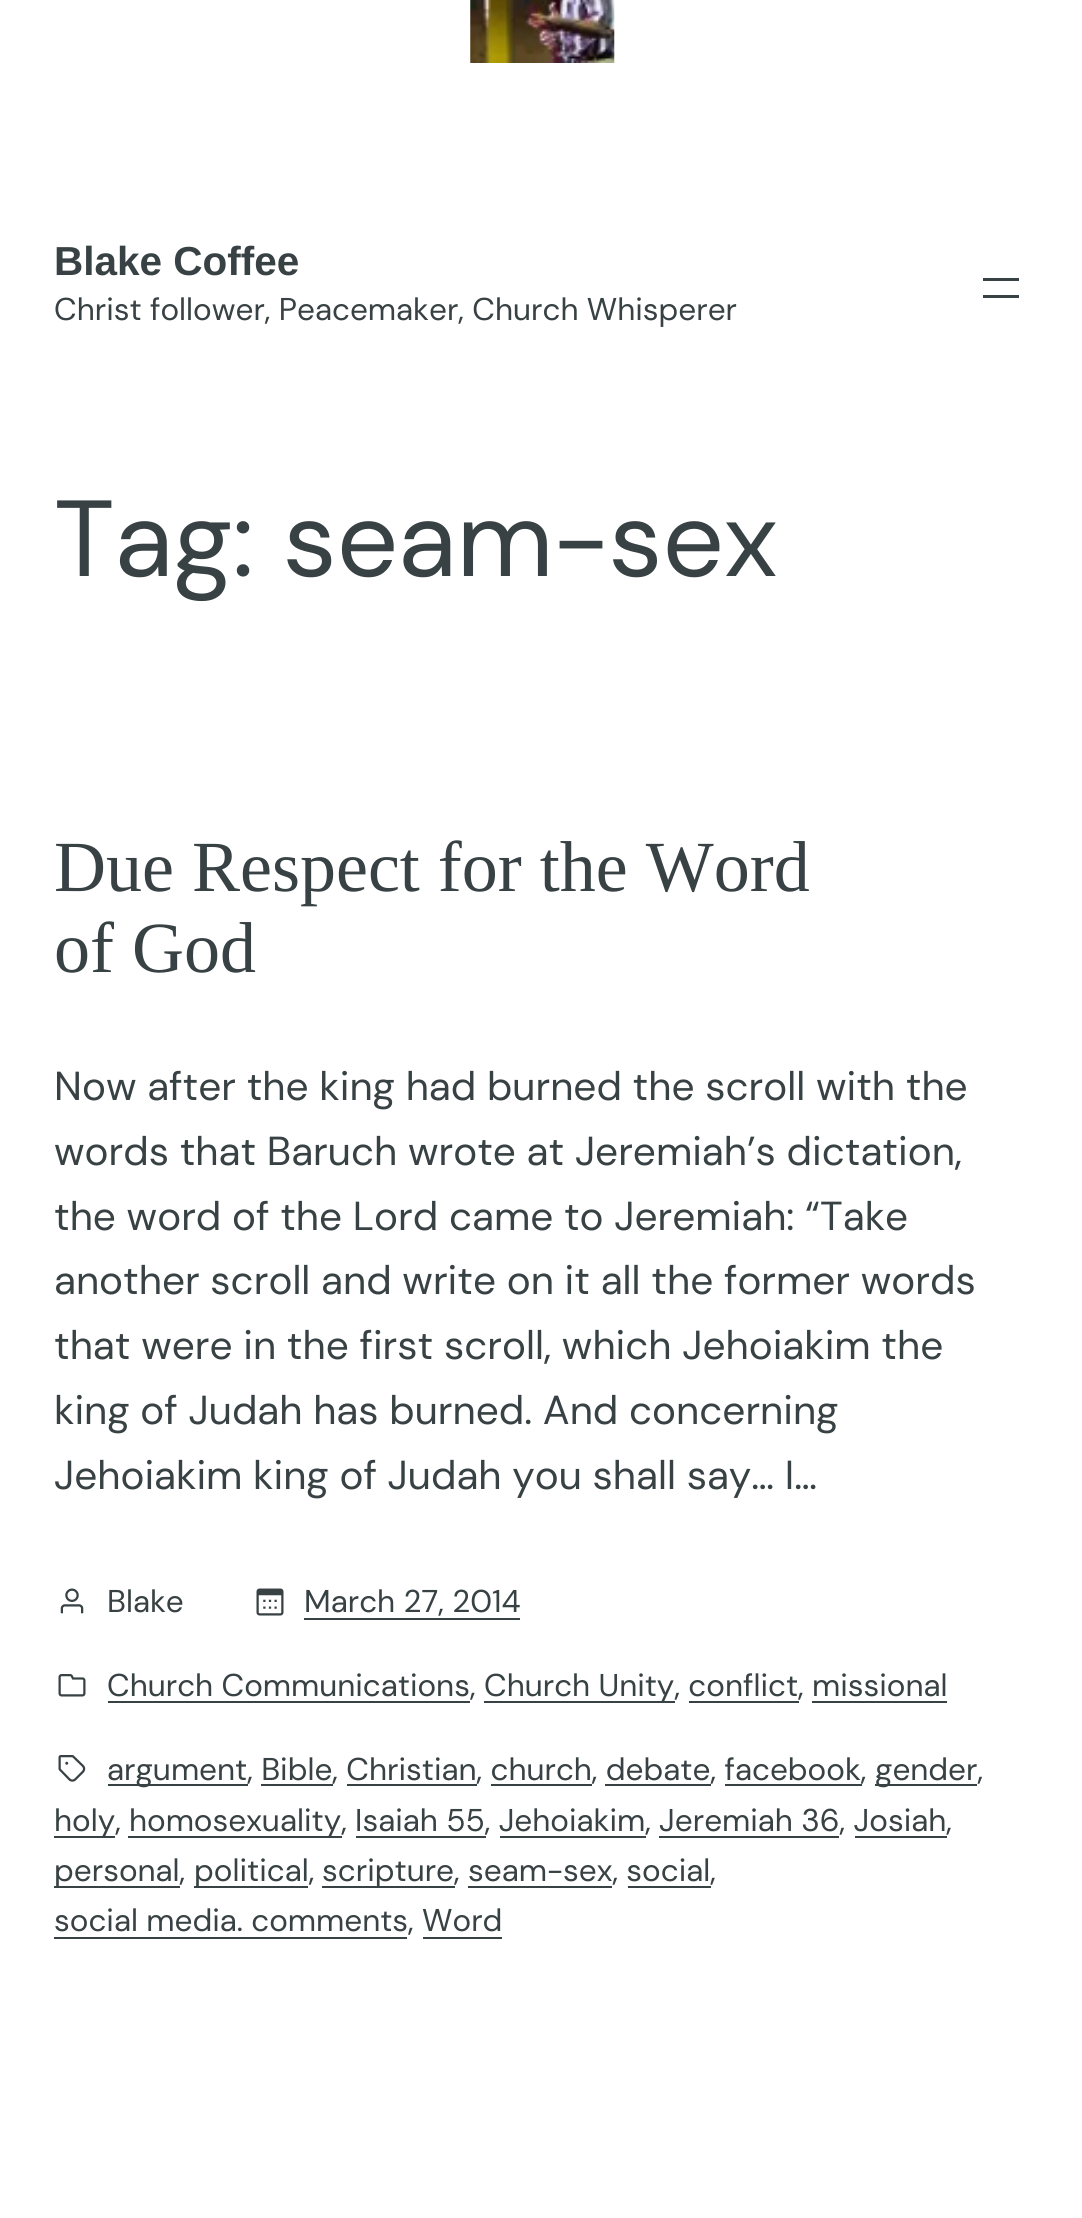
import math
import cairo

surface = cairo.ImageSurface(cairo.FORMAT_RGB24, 1082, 2218)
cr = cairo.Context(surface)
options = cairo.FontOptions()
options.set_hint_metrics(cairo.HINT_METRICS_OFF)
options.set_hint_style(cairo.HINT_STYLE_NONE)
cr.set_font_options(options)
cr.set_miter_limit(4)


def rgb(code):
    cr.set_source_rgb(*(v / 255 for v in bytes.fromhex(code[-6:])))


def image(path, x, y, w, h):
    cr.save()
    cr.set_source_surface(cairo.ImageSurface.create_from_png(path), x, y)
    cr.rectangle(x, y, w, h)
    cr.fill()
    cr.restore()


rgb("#ffffff")
cr.paint()
image("img/1.png", 470, 0, 145, 63)
rgb("#384143")
cr.rectangle(983, 278, 36, 3)
cr.fill()
cr.rectangle(983, 295, 36, 3)
cr.fill()
image("img/2.png", 60, 1588, 24, 26)
image("img/3.png", 256, 1588, 28, 28)
cr.rectangle(304, 1618, 216, 2)
cr.fill()
image("img/4.png", 58, 1674, 28, 23)
for x, y, w, h, color in [
    (108, 1701, 362, 2, "#384143"),
    (484, 1701, 191, 2, "#384143"),
    (689, 1701, 110, 2, "#384143"),
    (812, 1701, 135, 2, "#384143"),
]:
    rgb(color)
    cr.rectangle(x, y, w, h)
    cr.fill()
image("img/5.png", 58, 1755, 28, 27)
for x, y, w, h, color in [
    (108, 1784, 140, 2, "#384143"),
    (875, 1784, 102, 2, "#384143"),
    (261, 1784, 72, 2, "#384143"),
    (347, 1784, 130, 2, "#384143"),
    (491, 1784, 101, 2, "#384143"),
    (605, 1784, 106, 2, "#384143"),
    (725, 1784, 137, 2, "#384143"),
    (54, 1836, 61, 2, "#384143"),
    (128, 1836, 214, 2, "#384143"),
    (356, 1836, 130, 2, "#384143"),
    (500, 1836, 146, 2, "#384143"),
    (659, 1836, 180, 2, "#384143"),
    (855, 1836, 92, 2, "#384143"),
    (54, 1886, 126, 2, "#384143"),
    (194, 1886, 114, 2, "#384143"),
    (322, 1886, 133, 2, "#384143"),
    (468, 1886, 144, 2, "#384143"),
    (628, 1886, 83, 2, "#384143"),
    (54, 1937, 353, 2, "#384143"),
    (423, 1937, 79, 2, "#384143"),
]:
    rgb(color)
    cr.rectangle(x, y, w, h)
    cr.fill()
cr.select_font_face("Liberation Sans", cairo.FONT_SLANT_NORMAL, cairo.FONT_WEIGHT_BOLD)
cr.set_font_size(40.5)
cr.move_to(54, 275)
cr.show_text("Blake Coffee")
cr.select_font_face("DM Sans")
cr.set_font_size(31.5)
cr.move_to(54, 320)
cr.show_text("Christ follower, Peacemaker, Church Whisperer")
cr.set_font_size(108)
cr.move_to(54, 576)
cr.show_text("Tag: seam-sex")
cr.select_font_face("Liberation Serif")
cr.set_font_size(72)
cr.move_to(54, 891)
cr.show_text("Due Respect for the Word")
cr.move_to(54, 972)
cr.show_text("of God")
cr.select_font_face("DM Sans")
cr.set_font_size(40.5)
for x, y, s in [
    (54, 1100, "Now after the king had burned the scroll with the"),
    (54, 1165, "words that Baruch wrote at Jeremiah’s dictation,"),
    (54, 1230, "the word of the Lord came to Jeremiah: “Take"),
    (54, 1294, "another scroll and write on it all the former words"),
    (54, 1359, "that were in the first scroll, which Jehoiakim the"),
    (54, 1424, "king of Judah has burned. And concerning"),
    (54, 1489, "Jehoiakim king of Judah you shall say… I…"),
]:
    cr.move_to(x, y)
    cr.show_text(s)
cr.set_font_size(31.5)
for x, y, s in [
    (107, 1612, "Blake"),
    (304, 1612, "March 27, 2014"),
    (107, 1696, "Church Communications,"),
    (484, 1696, "Church Unity, conflict, missional"),
    (107, 1780, "argument, Bible, Christian, church, debate, facebook,"),
    (875, 1780, "gender,"),
    (54, 1831, "holy,"),
    (129, 1831, "homosexuality, Isaiah 55, Jehoiakim, Jeremiah 36, Josiah,"),
    (54, 1881, "personal,"),
    (194, 1881, "political,"),
    (322, 1881, "scripture, seam-sex, social,"),
    (54, 1931, "social media. comments, Word"),
]:
    cr.move_to(x, y)
    cr.show_text(s)
surface.write_to_png("page.png")
